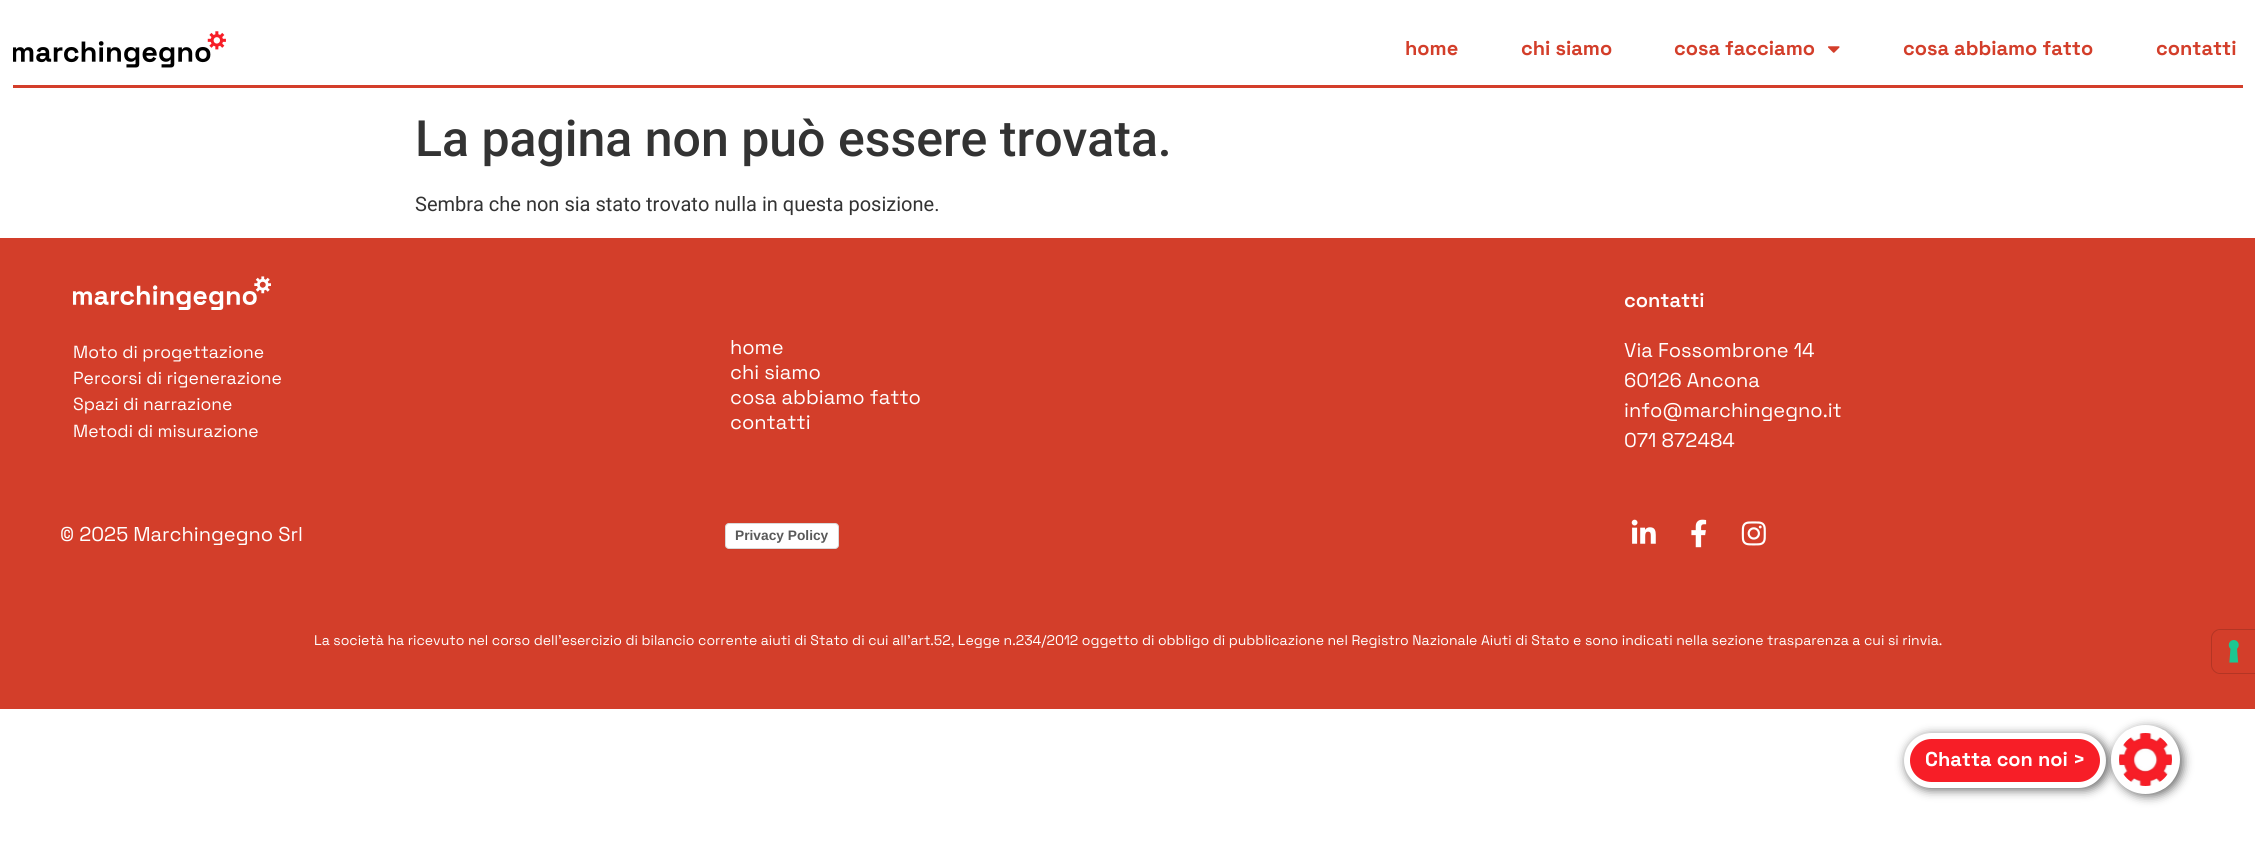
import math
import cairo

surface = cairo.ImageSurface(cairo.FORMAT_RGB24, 2255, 868)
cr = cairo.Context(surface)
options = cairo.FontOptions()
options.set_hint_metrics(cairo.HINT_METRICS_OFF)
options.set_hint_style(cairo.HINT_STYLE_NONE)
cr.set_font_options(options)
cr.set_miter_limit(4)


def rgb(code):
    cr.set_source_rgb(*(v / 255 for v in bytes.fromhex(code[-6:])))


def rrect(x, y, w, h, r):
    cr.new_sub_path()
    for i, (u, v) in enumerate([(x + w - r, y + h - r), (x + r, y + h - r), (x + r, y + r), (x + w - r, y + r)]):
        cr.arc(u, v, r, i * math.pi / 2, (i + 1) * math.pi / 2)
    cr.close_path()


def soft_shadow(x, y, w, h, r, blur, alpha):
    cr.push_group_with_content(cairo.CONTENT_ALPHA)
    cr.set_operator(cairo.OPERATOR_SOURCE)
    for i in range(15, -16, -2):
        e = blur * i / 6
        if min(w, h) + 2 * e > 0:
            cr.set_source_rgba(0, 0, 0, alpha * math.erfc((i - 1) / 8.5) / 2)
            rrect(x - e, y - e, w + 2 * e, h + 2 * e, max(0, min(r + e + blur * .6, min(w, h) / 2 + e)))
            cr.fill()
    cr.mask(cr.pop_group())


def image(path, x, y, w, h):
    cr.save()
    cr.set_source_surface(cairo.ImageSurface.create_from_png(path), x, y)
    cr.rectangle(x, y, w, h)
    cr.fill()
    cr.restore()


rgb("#ffffff")
cr.paint()
rgb("#d33e2a")
cr.rectangle(13, 85, 2230, 3)
cr.fill()
image("img/1.png", 13, 31, 213, 37)
image("img/2.png", 1828, 46, 12, 7)
cr.rectangle(0, 238, 2255, 471)
cr.fill()
image("img/3.png", 73, 276, 198, 34)
rgb("#000000")
soft_shadow(726, 525, 112, 24, 2.5, 0.5, 0.15)
rgb("#ffffff")
rrect(725, 523, 114, 26, 4)
cr.fill()
rrect(725.5, 523.5, 113, 25, 3.5)
cr.set_source_rgba(0, 0, 0, 0.15)
cr.set_line_width(1)
cr.stroke()
image("img/4.png", 1631, 519, 25, 25)
image("img/5.png", 1691, 519, 16, 29)
image("img/6.png", 1741, 521, 25, 25)
cr.new_path()
cr.move_to(2220, 629.5)
cr.line_to(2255.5, 629.5)
cr.line_to(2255.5, 673.5)
cr.line_to(2220, 673.5)
cr.curve_to(2215.5, 673.5, 2211.5, 669.5, 2211.5, 665)
cr.line_to(2211.5, 638)
cr.curve_to(2211.5, 633.5, 2215.5, 629.5, 2220, 629.5)
cr.close_path()
rgb("#b33524")
cr.stroke()
rgb("#d33e2a")
cr.new_path()
cr.move_to(2221, 630)
cr.line_to(2255, 630)
cr.line_to(2255, 673)
cr.line_to(2221, 673)
cr.curve_to(2216.5, 673, 2213, 669.5, 2213, 665)
cr.line_to(2213, 638)
cr.curve_to(2213, 633.5, 2216.5, 630, 2221, 630)
cr.close_path()
cr.fill()
image("img/7.png", 2228, 640, 11, 23)
rgb("#000000")
soft_shadow(1906, 735, 203, 55, 27.5, 5, 0.6)
rgb("#f71e27")
rrect(1907, 736, 196, 49, 24.5)
cr.fill_preserve()
rgb("#ffffff")
cr.set_line_width(6)
cr.stroke()
rgb("#000000")
soft_shadow(2114, 728, 69, 68, 34, 5, 0.6)
image("img/8.png", 2118, 730, 56, 59)
cr.arc(2145.5, 759.5, 30.5, 0, 2 * math.pi)
rgb("#ffffff")
cr.set_line_width(8)
cr.stroke()
cr.select_font_face("Space Grotesk", cairo.FONT_SLANT_NORMAL, cairo.FONT_WEIGHT_BOLD)
cr.set_font_size(20)
rgb("#d33e2a")
for x, y, s in [
    (1405, 55, "home"),
    (1521, 55, "chi siamo"),
    (1674, 55, "cosa facciamo"),
    (1903, 55, "cosa abbiamo fatto"),
    (2156, 55, "contatti"),
]:
    cr.move_to(x, y)
    cr.show_text(s)
cr.select_font_face("Roboto Medium")
cr.set_font_size(50)
rgb("#333333")
cr.move_to(415, 156)
cr.show_text("La pagina non può essere trovata.")
cr.select_font_face("Roboto")
cr.set_font_size(20)
cr.move_to(415, 211)
cr.show_text("Sembra che non sia stato trovato nulla in questa posizione.")
cr.select_font_face("Space Grotesk")
cr.set_font_size(17.5)
rgb("#ffffff")
for x, y, s in [
    (73, 358, "Moto di progettazione"),
    (73, 384, "Percorsi di rigenerazione"),
    (73, 410, "Spazi di narrazione"),
    (73, 437, "Metodi di misurazione"),
]:
    cr.move_to(x, y)
    cr.show_text(s)
cr.set_font_size(20)
for x, y, s in [
    (730, 354, "home"),
    (730, 379, "chi siamo"),
    (730, 404, "cosa abbiamo fatto"),
    (730, 429, "contatti"),
]:
    cr.move_to(x, y)
    cr.show_text(s)
cr.select_font_face("Space Grotesk SemiBold")
cr.move_to(1624, 307)
cr.show_text("contatti")
cr.select_font_face("Space Grotesk")
for x, y, s in [
    (1624, 357, "Via Fossombrone 14"),
    (1624, 387, "60126 Ancona"),
    (1624, 417, "info@marchingegno.it"),
    (1624, 447, "071 872484"),
    (60, 541, "© 2025 Marchingegno Srl"),
]:
    cr.move_to(x, y)
    cr.show_text(s)
cr.select_font_face("Liberation Sans", cairo.FONT_SLANT_NORMAL, cairo.FONT_WEIGHT_BOLD)
cr.set_font_size(13.75)
rgb("#595959")
cr.move_to(735, 540)
cr.show_text("Privacy Policy")
cr.select_font_face("Space Grotesk")
cr.set_font_size(14)
rgb("#ffffff")
cr.move_to(314, 645)
cr.show_text("La società ha ricevuto nel corso dell’esercizio di bilancio corrente aiuti di Stato di cui all’art.52, Legge n.234/2012 oggetto di obbligo di pubblicazione nel Registro Nazionale Aiuti di Stato e sono indicati nella sezione trasparenza a cui si rinvia.")
cr.select_font_face("Space Grotesk", cairo.FONT_SLANT_NORMAL, cairo.FONT_WEIGHT_BOLD)
cr.set_font_size(20)
cr.move_to(1925, 766)
cr.show_text("Chatta con noi >")
surface.write_to_png("page.png")
